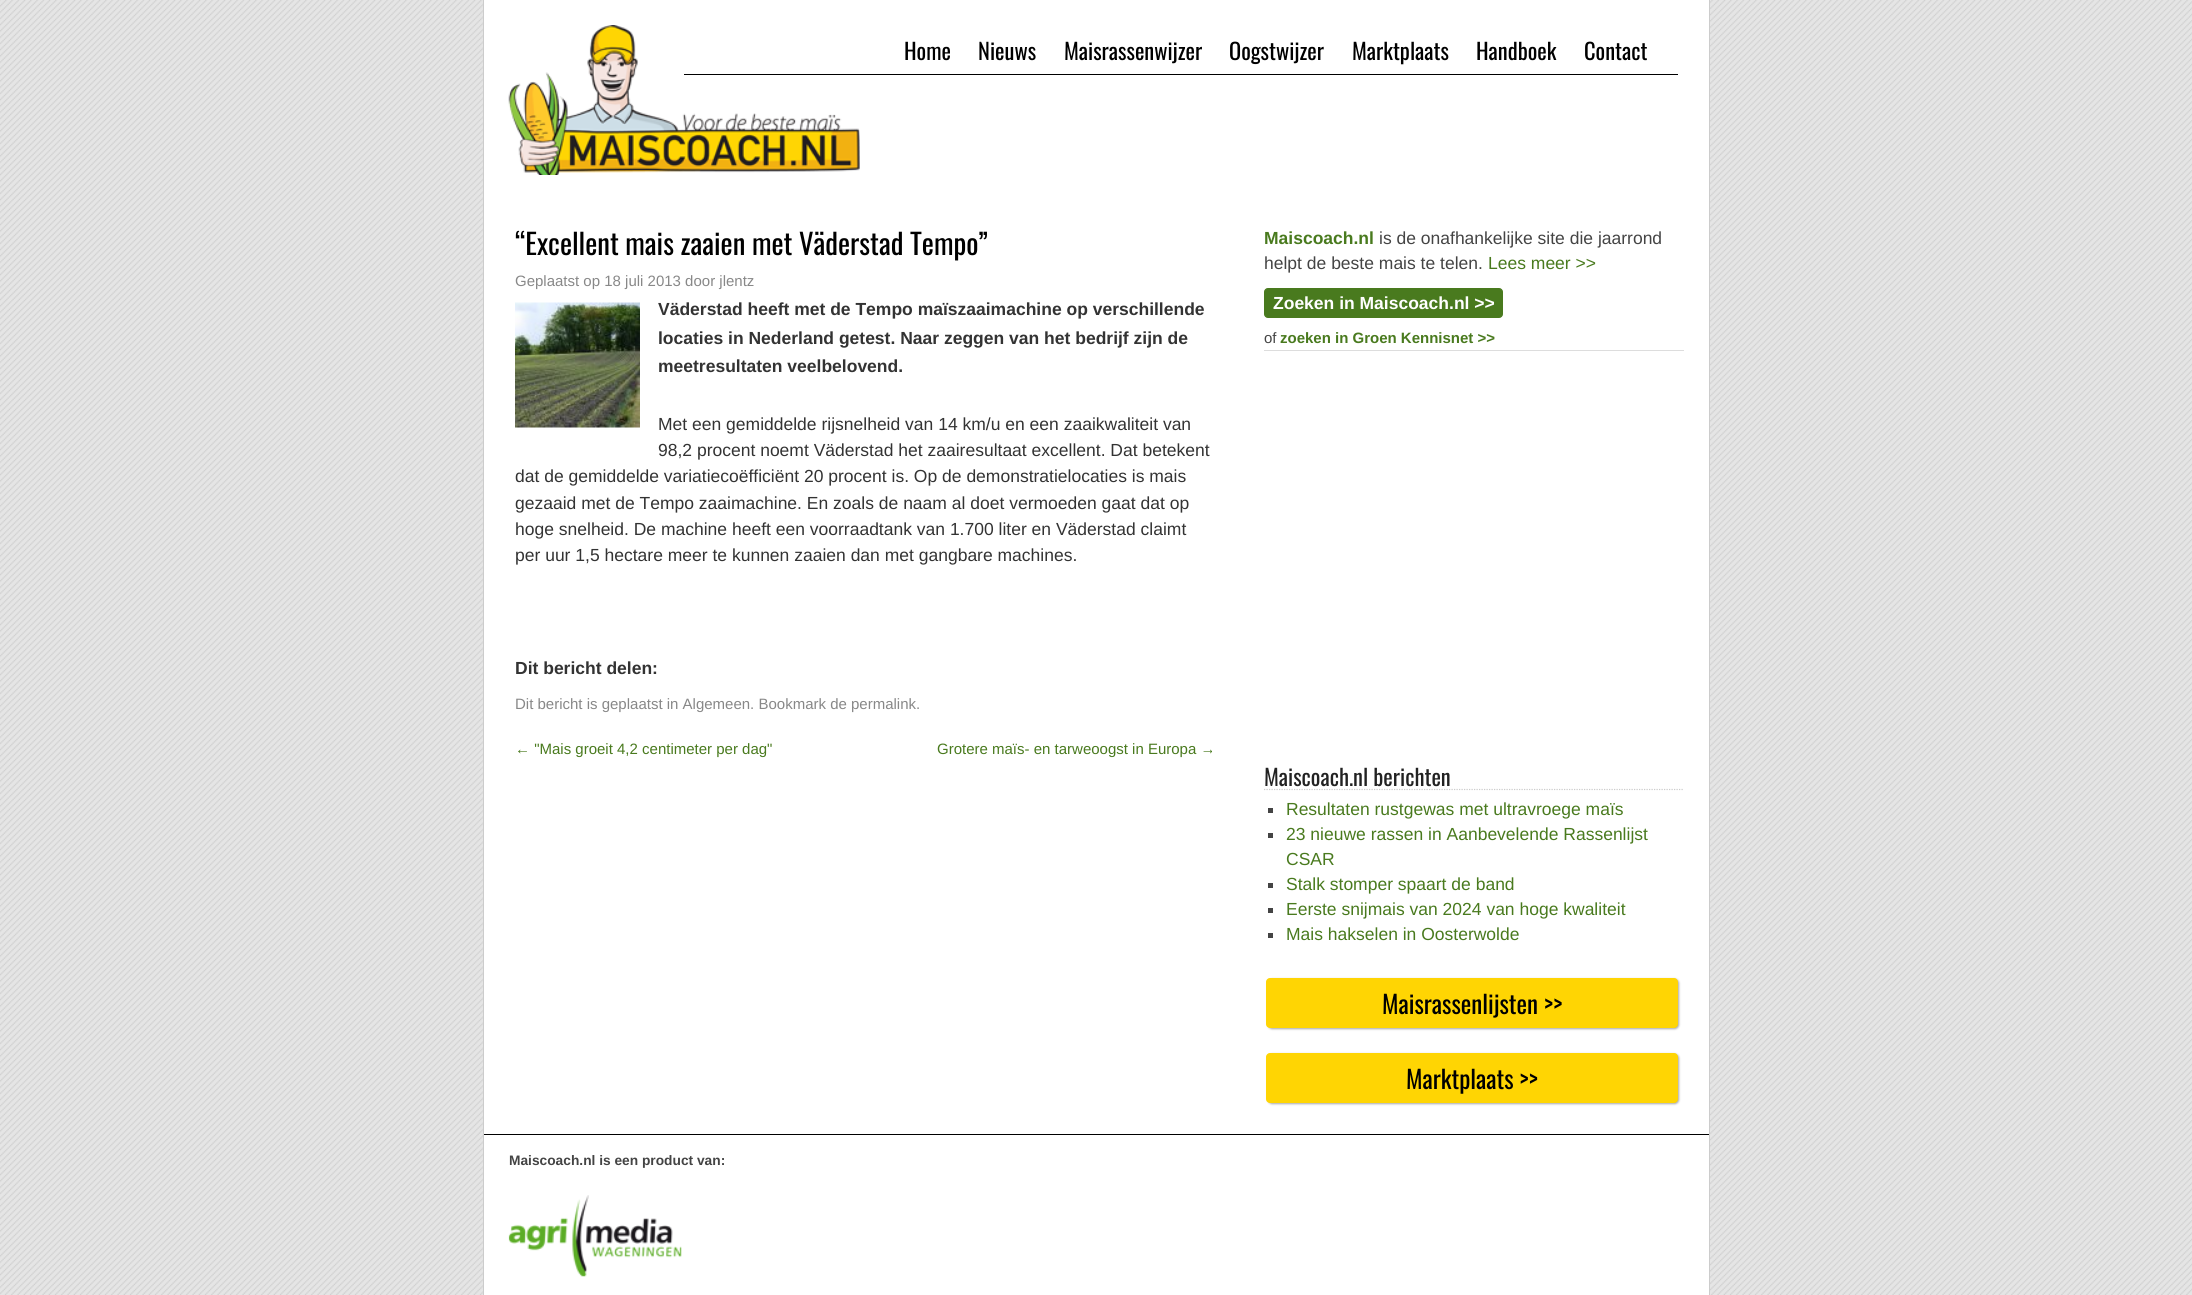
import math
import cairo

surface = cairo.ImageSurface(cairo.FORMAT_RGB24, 2192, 1295)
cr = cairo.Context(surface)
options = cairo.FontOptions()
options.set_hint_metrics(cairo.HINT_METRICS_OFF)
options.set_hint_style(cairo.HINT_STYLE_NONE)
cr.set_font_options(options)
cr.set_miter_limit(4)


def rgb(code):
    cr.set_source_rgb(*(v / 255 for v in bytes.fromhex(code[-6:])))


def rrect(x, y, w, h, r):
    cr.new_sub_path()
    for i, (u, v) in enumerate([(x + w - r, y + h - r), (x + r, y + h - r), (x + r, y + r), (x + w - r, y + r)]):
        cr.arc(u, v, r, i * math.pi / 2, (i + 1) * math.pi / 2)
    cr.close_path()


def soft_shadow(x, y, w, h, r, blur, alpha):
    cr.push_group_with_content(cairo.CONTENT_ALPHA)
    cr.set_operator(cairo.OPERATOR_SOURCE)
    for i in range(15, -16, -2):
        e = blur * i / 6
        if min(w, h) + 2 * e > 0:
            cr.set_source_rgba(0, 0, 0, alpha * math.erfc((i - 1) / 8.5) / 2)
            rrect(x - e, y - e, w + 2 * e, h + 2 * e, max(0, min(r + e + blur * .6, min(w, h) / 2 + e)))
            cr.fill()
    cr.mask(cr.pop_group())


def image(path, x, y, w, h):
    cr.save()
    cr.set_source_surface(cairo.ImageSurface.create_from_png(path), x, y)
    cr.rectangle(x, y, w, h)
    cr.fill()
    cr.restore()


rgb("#ffffff")
cr.paint()
image("img/1.png", 0, 0, 2192, 1295)
for x, y, w, h, color in [
    (484, 0, 1225, 1295, "#ffffff"),
    (1709, 0, 1, 1295, "#cccccc"),
    (483, 0, 1, 1295, "#cccccc"),
]:
    rgb(color)
    cr.rectangle(x, y, w, h)
    cr.fill()
image("img/2.png", 508, 25, 352, 150)
rgb("#000000")
cr.rectangle(684, 74, 994, 1)
cr.fill()
image("img/3.png", 515, 302, 125, 126)
rgb("#497a1e")
rrect(1264.5, 288.5, 238, 29, 3.5)
cr.fill_preserve()
cr.set_line_width(1)
cr.stroke()
rgb("#dddddd")
cr.rectangle(1264, 350, 420, 1)
cr.fill()
cr.new_path()
cr.move_to(1264, 789.5)
cr.line_to(1684, 789.5)
rgb("#cccccc")
cr.set_line_width(1.2)
cr.set_dash([1.25, 1.25])
cr.stroke()
for x, y, w, h, color in [
    (1268, 808, 5, 5, "#444444"),
    (1268, 833, 5, 5, "#444444"),
    (1268, 883, 5, 5, "#444444"),
    (1268, 908, 5, 5, "#444444"),
    (1268, 933, 5, 5, "#444444"),
]:
    rgb(color)
    cr.rectangle(x, y, w, h)
    cr.fill()
rgb("#aaaaaa")
soft_shadow(1268, 979, 411, 50, 4, 1, 1)
rgb("#ffd503")
rrect(1266, 978, 412, 50, 4)
cr.fill()
rgb("#aaaaaa")
soft_shadow(1268, 1054, 411, 50, 4, 1, 1)
rgb("#ffd503")
rrect(1266, 1053, 412, 50, 4)
cr.fill()
rgb("#000000")
cr.rectangle(484, 1134, 1225, 1)
cr.fill()
image("img/4.png", 508, 1195, 174, 82)
cr.select_font_face("Oswald")
cr.set_font_size(22.5)
for x, y, s in [
    (904, 60, "Home"),
    (978, 60, "Nieuws"),
    (1064, 60, "Maisrassenwijzer"),
    (1229, 60, "Oogstwijzer"),
    (1352, 60, "Marktplaats"),
    (1476, 60, "Handboek"),
    (1584, 60, "Contact"),
]:
    cr.move_to(x, y)
    cr.show_text(s)
cr.set_font_size(28.75)
cr.move_to(515, 255)
cr.show_text("“Excellent mais zaaien met Väderstad Tempo”")
cr.select_font_face("Liberation Sans")
cr.set_font_size(15)
rgb("#888888")
cr.move_to(515, 286)
cr.show_text("Geplaatst op 18 juli 2013 door jlentz")
cr.select_font_face("Liberation Sans", cairo.FONT_SLANT_NORMAL, cairo.FONT_WEIGHT_BOLD)
cr.set_font_size(17.5)
rgb("#333333")
for x, y, s in [
    (658, 315, "Väderstad heeft met de Tempo maïszaaimachine op verschillende"),
    (658, 344, "locaties in Nederland getest. Naar zeggen van het bedrijf zijn de"),
    (658, 372, "meetresultaten veelbelovend."),
]:
    cr.move_to(x, y)
    cr.show_text(s)
cr.select_font_face("Liberation Sans")
for x, y, s in [
    (658, 430, "Met een gemiddelde rijsnelheid van 14 km/u en een zaaikwaliteit van"),
    (658, 456, "98,2 procent noemt Väderstad het zaairesultaat excellent. Dat betekent"),
    (515, 482, "dat de gemiddelde variatiecoëfficiënt 20 procent is. Op de demonstratielocaties is mais"),
    (515, 509, "gezaaid met de Tempo zaaimachine. En zoals de naam al doet vermoeden gaat dat op"),
    (515, 535, "hoge snelheid. De machine heeft een voorraadtank van 1.700 liter en Väderstad claimt"),
    (515, 561, "per uur 1,5 hectare meer te kunnen zaaien dan met gangbare machines."),
]:
    cr.move_to(x, y)
    cr.show_text(s)
cr.select_font_face("Liberation Sans", cairo.FONT_SLANT_NORMAL, cairo.FONT_WEIGHT_BOLD)
cr.move_to(515, 674)
cr.show_text("Dit bericht delen:")
cr.select_font_face("Liberation Sans")
cr.set_font_size(15)
rgb("#888888")
cr.move_to(515, 709)
cr.show_text("Dit bericht is geplaatst in Algemeen. Bookmark de permalink.")
rgb("#497a1e")
cr.move_to(515, 754)
cr.show_text("← \"Mais groeit 4,2 centimeter per dag\"")
cr.move_to(937, 754)
cr.show_text("Grotere maïs- en tarweoogst in Europa →")
cr.select_font_face("Liberation Sans", cairo.FONT_SLANT_NORMAL, cairo.FONT_WEIGHT_BOLD)
cr.set_font_size(17.5)
cr.move_to(1264, 244)
cr.show_text("Maiscoach.nl")
cr.select_font_face("Liberation Sans")
rgb("#444444")
cr.move_to(1379, 244)
cr.show_text("is de onafhankelijke site die jaarrond")
cr.move_to(1264, 269)
cr.show_text("helpt de beste mais te telen.")
rgb("#497a1e")
cr.move_to(1488, 269)
cr.show_text("Lees meer >>")
cr.select_font_face("Liberation Sans", cairo.FONT_SLANT_NORMAL, cairo.FONT_WEIGHT_BOLD)
rgb("#ffffff")
cr.move_to(1273, 309)
cr.show_text("Zoeken in Maiscoach.nl >>")
cr.select_font_face("Liberation Sans")
cr.set_font_size(15)
rgb("#444444")
cr.move_to(1264, 343)
cr.show_text("of")
cr.select_font_face("Liberation Sans", cairo.FONT_SLANT_NORMAL, cairo.FONT_WEIGHT_BOLD)
rgb("#497a1e")
cr.move_to(1280, 343)
cr.show_text("zoeken in Groen Kennisnet >>")
cr.select_font_face("Oswald")
cr.set_font_size(22.5)
rgb("#222222")
cr.move_to(1264, 786)
cr.show_text("Maiscoach.nl berichten")
cr.select_font_face("Liberation Sans")
cr.set_font_size(17.5)
rgb("#497a1e")
for x, y, s in [
    (1286, 815, "Resultaten rustgewas met ultravroege maïs"),
    (1286, 840, "23 nieuwe rassen in Aanbevelende Rassenlijst"),
    (1286, 865, "CSAR"),
    (1286, 890, "Stalk stomper spaart de band"),
    (1286, 915, "Eerste snijmais van 2024 van hoge kwaliteit"),
    (1286, 940, "Mais hakselen in Oosterwolde"),
]:
    cr.move_to(x, y)
    cr.show_text(s)
cr.select_font_face("Oswald")
cr.set_font_size(25)
rgb("#000000")
cr.move_to(1382, 1014)
cr.show_text("Maisrassenlijsten >>")
cr.move_to(1406, 1089)
cr.show_text("Marktplaats >>")
cr.select_font_face("Liberation Sans", cairo.FONT_SLANT_NORMAL, cairo.FONT_WEIGHT_BOLD)
cr.set_font_size(13.75)
rgb("#444444")
cr.move_to(509, 1165)
cr.show_text("Maiscoach.nl is een product van:")
surface.write_to_png("page.png")
